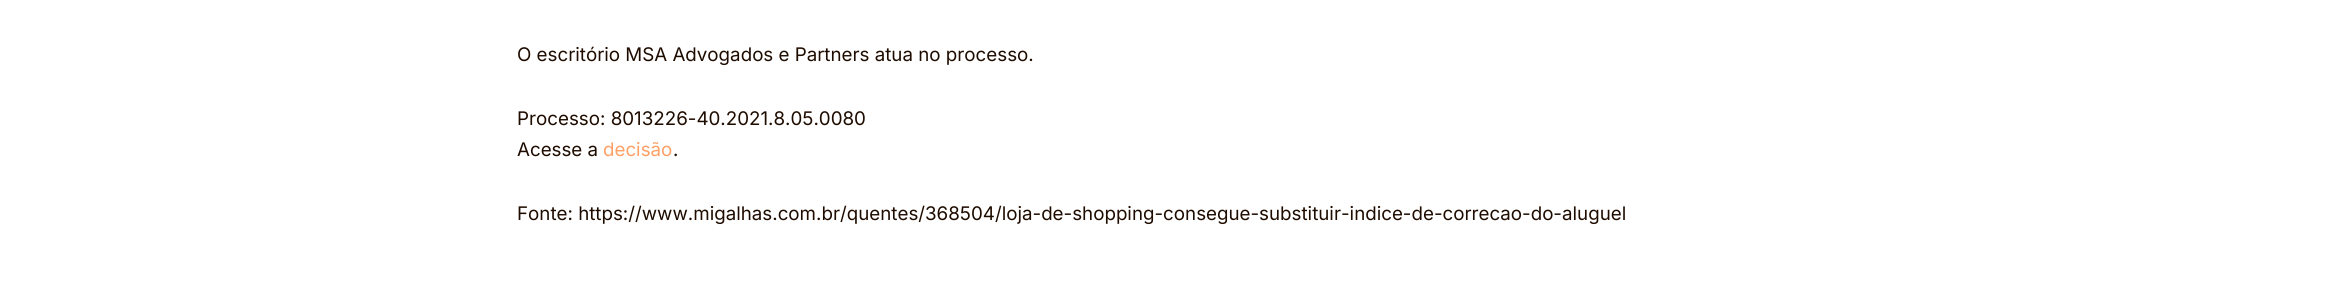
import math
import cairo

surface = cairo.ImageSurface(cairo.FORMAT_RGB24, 2333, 307)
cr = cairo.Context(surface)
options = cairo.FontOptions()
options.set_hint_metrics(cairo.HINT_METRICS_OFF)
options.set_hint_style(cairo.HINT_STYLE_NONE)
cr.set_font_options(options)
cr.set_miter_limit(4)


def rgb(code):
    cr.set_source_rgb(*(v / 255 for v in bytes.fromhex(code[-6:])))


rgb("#ffffff")
cr.paint()
cr.select_font_face("Inter")
cr.set_font_size(18.75)
rgb("#1f0c00")
for x, y, s in [
    (517, 61, "O escritório MSA Advogados e Partners atua no processo."),
    (517, 125, "Processo: 8013226-40.2021.8.05.0080"),
    (517, 156, "Acesse a"),
]:
    cr.move_to(x, y)
    cr.show_text(s)
rgb("#ffa066")
cr.move_to(603, 156)
cr.show_text("decisão")
rgb("#1f0c00")
cr.move_to(673, 156)
cr.show_text(".")
cr.move_to(517, 220)
cr.show_text("Fonte: https://www.migalhas.com.br/quentes/368504/loja-de-shopping-consegue-substituir-indice-de-correcao-do-aluguel")
surface.write_to_png("page.png")
